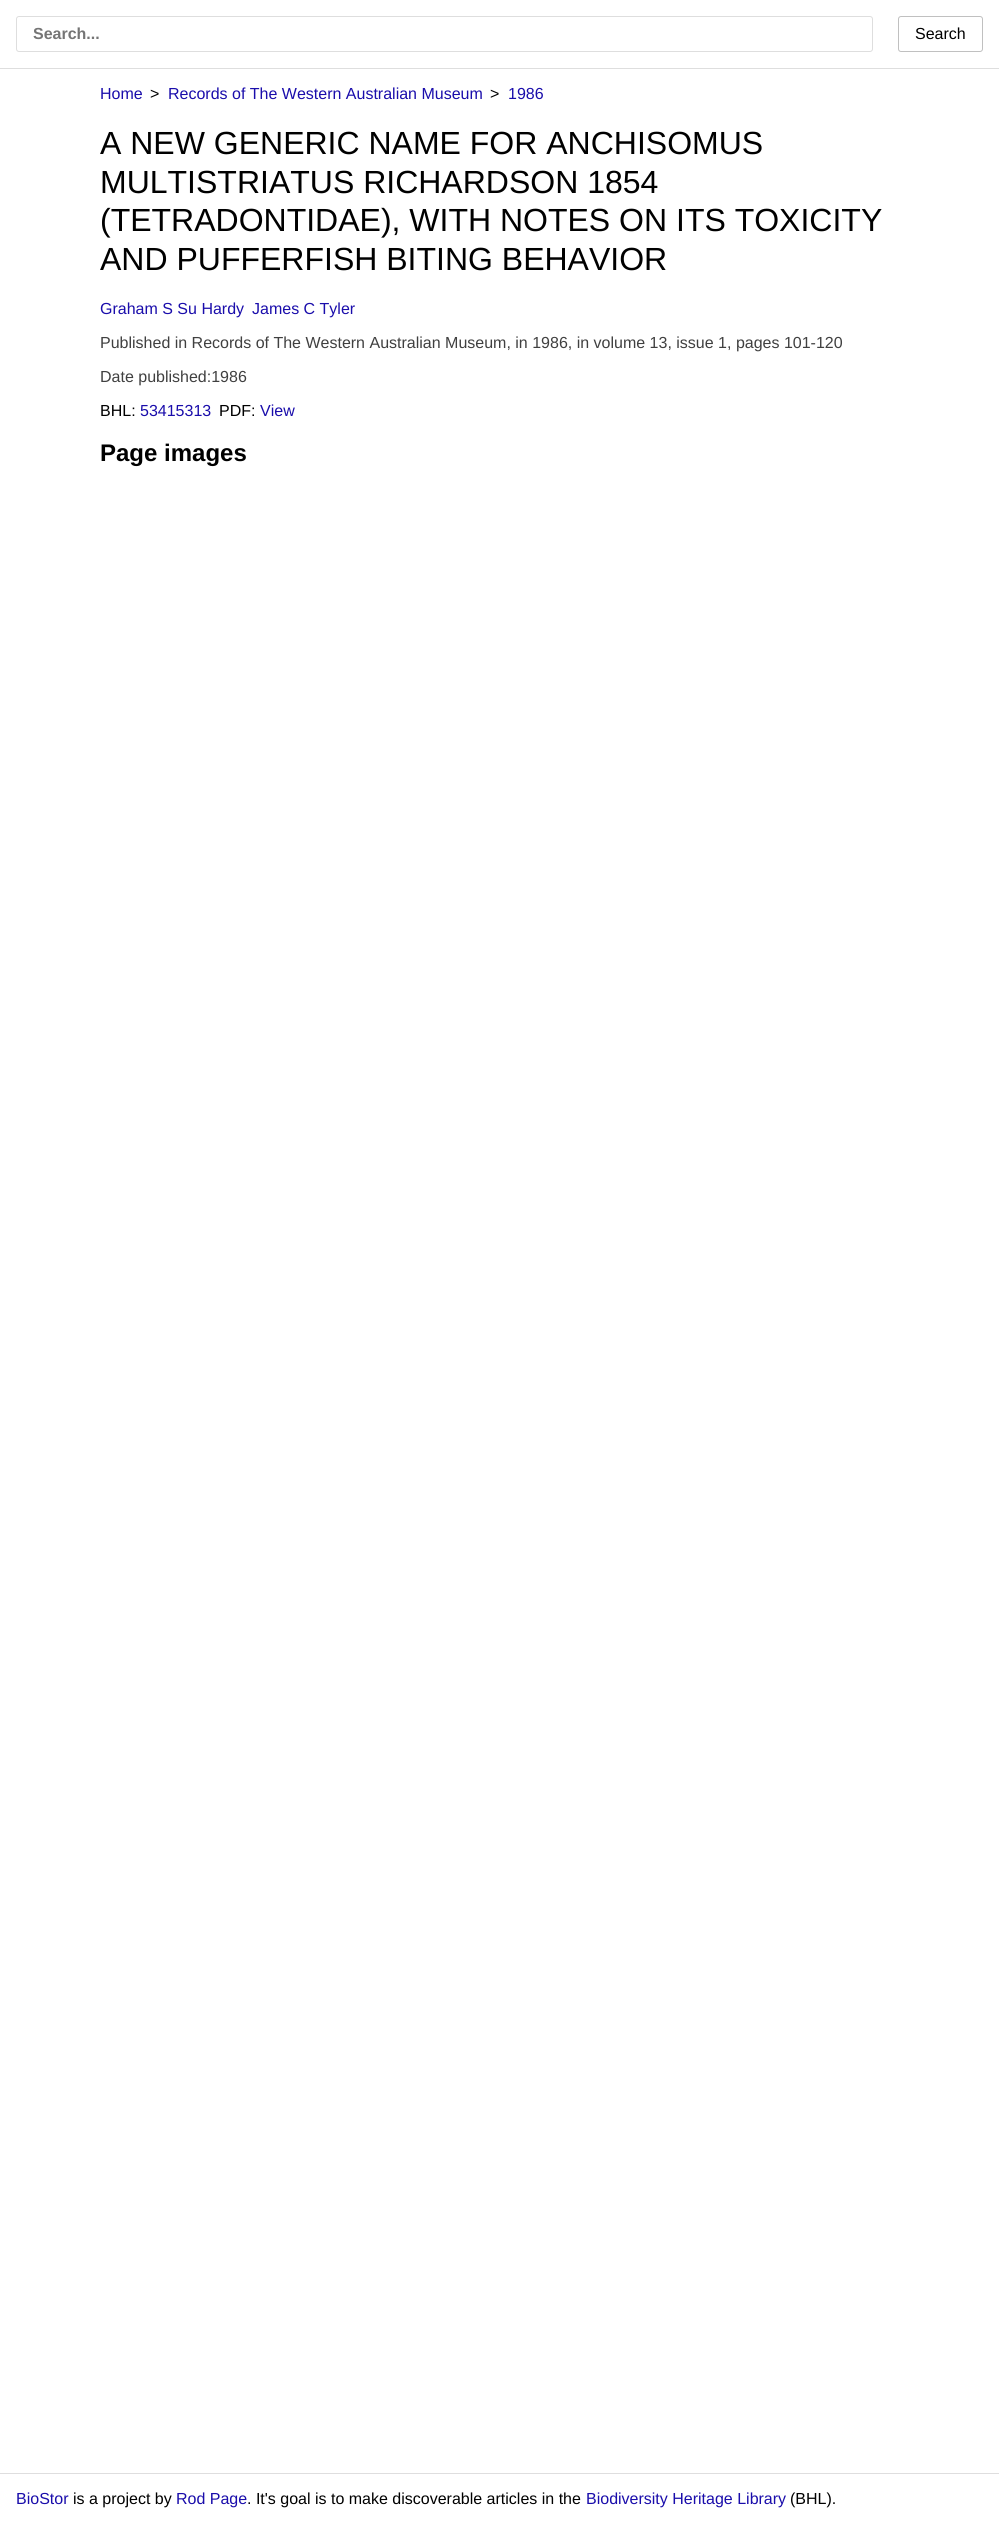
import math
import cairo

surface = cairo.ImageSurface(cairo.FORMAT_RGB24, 999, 2524)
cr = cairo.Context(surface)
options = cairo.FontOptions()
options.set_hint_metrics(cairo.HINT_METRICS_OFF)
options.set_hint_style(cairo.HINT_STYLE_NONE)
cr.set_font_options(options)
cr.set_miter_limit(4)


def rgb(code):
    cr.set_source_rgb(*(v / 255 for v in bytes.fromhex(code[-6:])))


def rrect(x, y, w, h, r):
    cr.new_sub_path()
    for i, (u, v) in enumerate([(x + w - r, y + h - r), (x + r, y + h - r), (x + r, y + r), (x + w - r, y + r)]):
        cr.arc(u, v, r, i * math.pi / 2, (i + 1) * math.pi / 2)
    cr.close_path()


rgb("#ffffff")
cr.paint()
rgb("#dedede")
cr.rectangle(0, 68, 999, 1)
cr.fill()
rrect(16.5, 16.5, 856, 35, 2.5)
cr.set_line_width(1)
cr.stroke()
rrect(898.5, 16.5, 84, 35, 2.5)
rgb("#c0c0c0")
cr.stroke()
rgb("#dedede")
cr.rectangle(0, 2473, 999, 1)
cr.fill()
cr.select_font_face("Liberation Sans", cairo.FONT_SLANT_NORMAL, cairo.FONT_WEIGHT_BOLD)
cr.set_font_size(16)
rgb("#757575")
cr.move_to(33, 39)
cr.show_text("Search...")
cr.select_font_face("Liberation Sans")
rgb("#000000")
cr.move_to(915, 39)
cr.show_text("Search")
rgb("#1a0dab")
cr.move_to(100, 99)
cr.show_text("Home")
rgb("#000000")
cr.move_to(150, 99)
cr.show_text(">")
rgb("#1a0dab")
cr.move_to(168, 99)
cr.show_text("Records of The Western Australian Museum")
rgb("#000000")
cr.move_to(490, 99)
cr.show_text(">")
rgb("#1a0dab")
cr.move_to(508, 99)
cr.show_text("1986")
cr.set_font_size(32)
rgb("#000000")
for x, y, s in [
    (100, 154, "A NEW GENERIC NAME FOR ANCHISOMUS"),
    (100, 193, "MULTISTRIATUS RICHARDSON 1854"),
    (100, 231, "(TETRADONTIDAE), WITH NOTES ON ITS TOXICITY"),
    (100, 270, "AND PUFFERFISH BITING BEHAVIOR"),
]:
    cr.move_to(x, y)
    cr.show_text(s)
cr.set_font_size(16)
rgb("#1a0dab")
cr.move_to(100, 314)
cr.show_text("Graham S Su Hardy")
cr.move_to(252, 314)
cr.show_text("James C Tyler")
rgb("#404040")
cr.move_to(100, 348)
cr.show_text("Published in Records of The Western Australian Museum, in 1986, in volume 13, issue 1, pages 101-120")
cr.move_to(100, 382)
cr.show_text("Date published:1986")
rgb("#000000")
cr.move_to(100, 416)
cr.show_text("BHL:")
rgb("#1a0dab")
cr.move_to(140, 416)
cr.show_text("53415313")
rgb("#000000")
cr.move_to(219, 416)
cr.show_text("PDF:")
rgb("#1a0dab")
cr.move_to(260, 416)
cr.show_text("View")
cr.select_font_face("Liberation Sans", cairo.FONT_SLANT_NORMAL, cairo.FONT_WEIGHT_BOLD)
cr.set_font_size(24)
rgb("#000000")
cr.move_to(100, 461)
cr.show_text("Page images")
cr.select_font_face("Liberation Sans")
cr.set_font_size(16)
rgb("#1a0dab")
cr.move_to(16, 2504)
cr.show_text("BioStor")
rgb("#000000")
cr.move_to(73, 2504)
cr.show_text("is a project by")
rgb("#1a0dab")
cr.move_to(176, 2504)
cr.show_text("Rod Page")
rgb("#000000")
cr.move_to(247, 2504)
cr.show_text(". It's goal is to make discoverable articles in the")
rgb("#1a0dab")
cr.move_to(586, 2504)
cr.show_text("Biodiversity Heritage Library")
rgb("#000000")
cr.move_to(790, 2504)
cr.show_text("(BHL).")
surface.write_to_png("page.png")
